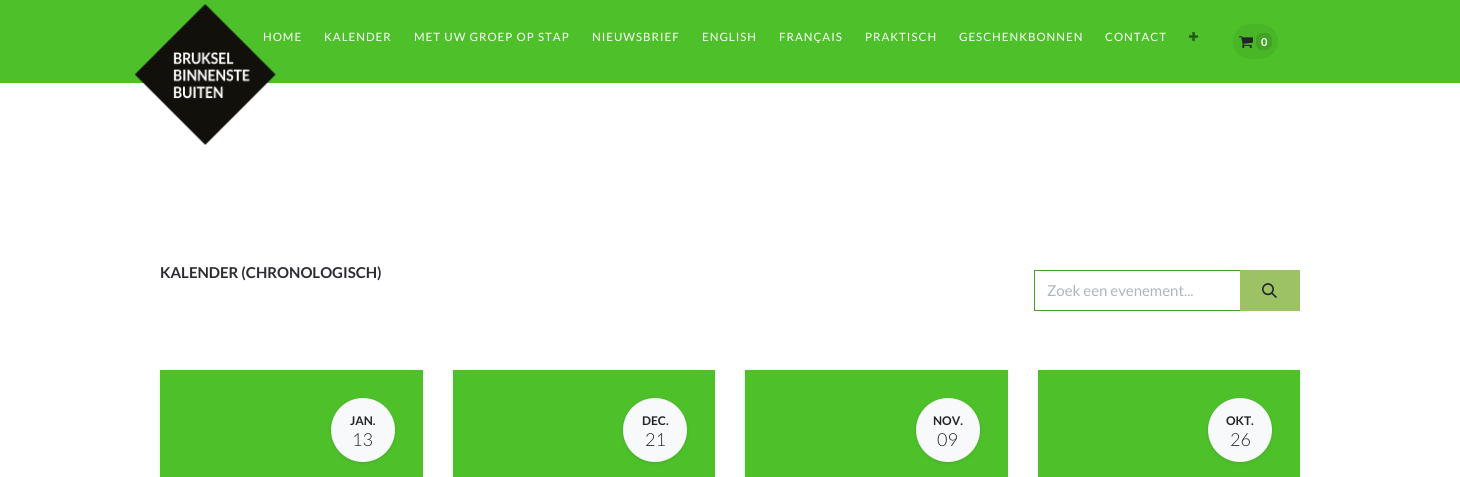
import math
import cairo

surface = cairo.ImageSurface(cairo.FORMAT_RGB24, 1460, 477)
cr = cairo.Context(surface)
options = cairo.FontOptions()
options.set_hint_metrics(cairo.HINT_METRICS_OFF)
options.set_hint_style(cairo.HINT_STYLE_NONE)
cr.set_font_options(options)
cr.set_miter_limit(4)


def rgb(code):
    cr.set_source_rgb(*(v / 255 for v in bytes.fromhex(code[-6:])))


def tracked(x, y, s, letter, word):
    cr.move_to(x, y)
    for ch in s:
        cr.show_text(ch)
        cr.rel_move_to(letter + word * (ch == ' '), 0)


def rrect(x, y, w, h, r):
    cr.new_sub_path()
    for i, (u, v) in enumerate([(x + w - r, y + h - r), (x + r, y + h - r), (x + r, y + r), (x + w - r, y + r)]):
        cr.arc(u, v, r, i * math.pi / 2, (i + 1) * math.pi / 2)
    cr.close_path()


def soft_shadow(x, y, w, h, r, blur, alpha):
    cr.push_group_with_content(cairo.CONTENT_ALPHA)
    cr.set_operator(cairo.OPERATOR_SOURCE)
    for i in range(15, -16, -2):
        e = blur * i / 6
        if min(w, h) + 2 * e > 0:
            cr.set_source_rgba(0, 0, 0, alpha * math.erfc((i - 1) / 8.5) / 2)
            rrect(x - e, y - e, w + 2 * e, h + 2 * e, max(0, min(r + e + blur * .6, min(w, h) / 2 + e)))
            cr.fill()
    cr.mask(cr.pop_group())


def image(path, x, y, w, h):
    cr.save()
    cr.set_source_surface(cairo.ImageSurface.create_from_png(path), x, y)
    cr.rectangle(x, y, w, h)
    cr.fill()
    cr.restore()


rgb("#ffffff")
cr.paint()
rgb("#4dc02a")
cr.rectangle(0, 0, 1460, 83)
cr.fill()
image("img/2.png", 1189, 31, 10, 10)
rgb("#49b628")
rrect(1233, 24, 45, 35, 17.5)
cr.fill()
image("img/3.png", 1239, 36, 14, 12)
rgb("#41a324")
rrect(1256, 33, 16, 17, 6)
cr.fill()
cr.rectangle(1034.5, 270.5, 206, 40)
cr.set_line_width(1)
cr.stroke()
rgb("#9cc264")
cr.rectangle(1240, 270, 60, 41)
cr.fill()
image("img/4.png", 1262, 283, 15, 15)
rgb("#000000")
soft_shadow(160, 371, 263, 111, 0, 1.5, 0.1)
rgb("#4dc02a")
cr.rectangle(160, 370, 263, 107)
cr.fill()
rgb("#000000")
soft_shadow(331, 399, 64, 64, 32, 1.5, 0.1)
rgb("#f8f9fa")
cr.arc(363, 430, 32, 0, 2 * math.pi)
cr.fill()
rgb("#000000")
soft_shadow(453, 371, 262, 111, 0, 1.5, 0.1)
rgb("#4dc02a")
cr.rectangle(453, 370, 262, 107)
cr.fill()
rgb("#000000")
soft_shadow(623, 399, 64, 64, 32, 1.5, 0.1)
rgb("#f8f9fa")
cr.arc(655, 430, 32, 0, 2 * math.pi)
cr.fill()
rgb("#000000")
soft_shadow(745, 371, 263, 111, 0, 1.5, 0.1)
rgb("#4dc02a")
cr.rectangle(745, 370, 263, 107)
cr.fill()
rgb("#000000")
soft_shadow(916, 399, 64, 64, 32, 1.5, 0.1)
rgb("#f8f9fa")
cr.arc(948, 430, 32, 0, 2 * math.pi)
cr.fill()
rgb("#000000")
soft_shadow(1038, 371, 262, 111, 0, 1.5, 0.1)
rgb("#4dc02a")
cr.rectangle(1038, 370, 262, 107)
cr.fill()
rgb("#000000")
soft_shadow(1208, 399, 64, 64, 32, 1.5, 0.1)
rgb("#f8f9fa")
cr.arc(1240, 430, 32, 0, 2 * math.pi)
cr.fill()
cr.select_font_face("Lato")
cr.set_font_size(11.5)
rgb("#ffffff")
tracked(263, 41, "HOME", 1, 0)
image("img/1.png", 134, 4, 142, 141)
for x, y, s in [
    (324, 41, "KALENDER"),
    (414, 41, "MET UW GROEP OP STAP"),
    (592, 41, "NIEUWSBRIEF"),
    (702, 41, "ENGLISH"),
    (779, 41, "FRANÇAIS"),
    (865, 41, "PRAKTISCH"),
    (959, 41, "GESCHENKBONNEN"),
    (1105, 41, "CONTACT"),
]:
    tracked(x, y, s, 1, 0)
cr.select_font_face("Lato", cairo.FONT_SLANT_NORMAL, cairo.FONT_WEIGHT_BOLD)
cr.set_font_size(11)
cr.move_to(1261, 46)
cr.show_text("0")
cr.set_font_size(15)
rgb("#2b2d33")
cr.move_to(160, 278)
cr.show_text("KALENDER (CHRONOLOGISCH)")
cr.select_font_face("Lato")
rgb("#adb5bd")
cr.move_to(1047, 296)
cr.show_text("Zoek een evenement...")
cr.select_font_face("Lato", cairo.FONT_SLANT_NORMAL, cairo.FONT_WEIGHT_BOLD)
cr.set_font_size(12)
rgb("#212529")
cr.move_to(350, 425)
cr.show_text("JAN.")
cr.select_font_face("Lato Light")
cr.set_font_size(18)
cr.move_to(352, 446)
cr.show_text("13")
cr.select_font_face("Lato", cairo.FONT_SLANT_NORMAL, cairo.FONT_WEIGHT_BOLD)
cr.set_font_size(12)
cr.move_to(642, 425)
cr.show_text("DEC.")
cr.select_font_face("Lato Light")
cr.set_font_size(18)
cr.move_to(645, 446)
cr.show_text("21")
cr.select_font_face("Lato", cairo.FONT_SLANT_NORMAL, cairo.FONT_WEIGHT_BOLD)
cr.set_font_size(12)
cr.move_to(933, 425)
cr.show_text("NOV.")
cr.select_font_face("Lato Light")
cr.set_font_size(18)
cr.move_to(937, 446)
cr.show_text("09")
cr.select_font_face("Lato", cairo.FONT_SLANT_NORMAL, cairo.FONT_WEIGHT_BOLD)
cr.set_font_size(12)
cr.move_to(1226, 425)
cr.show_text("OKT.")
cr.select_font_face("Lato Light")
cr.set_font_size(18)
cr.move_to(1230, 446)
cr.show_text("26")
surface.write_to_png("page.png")
